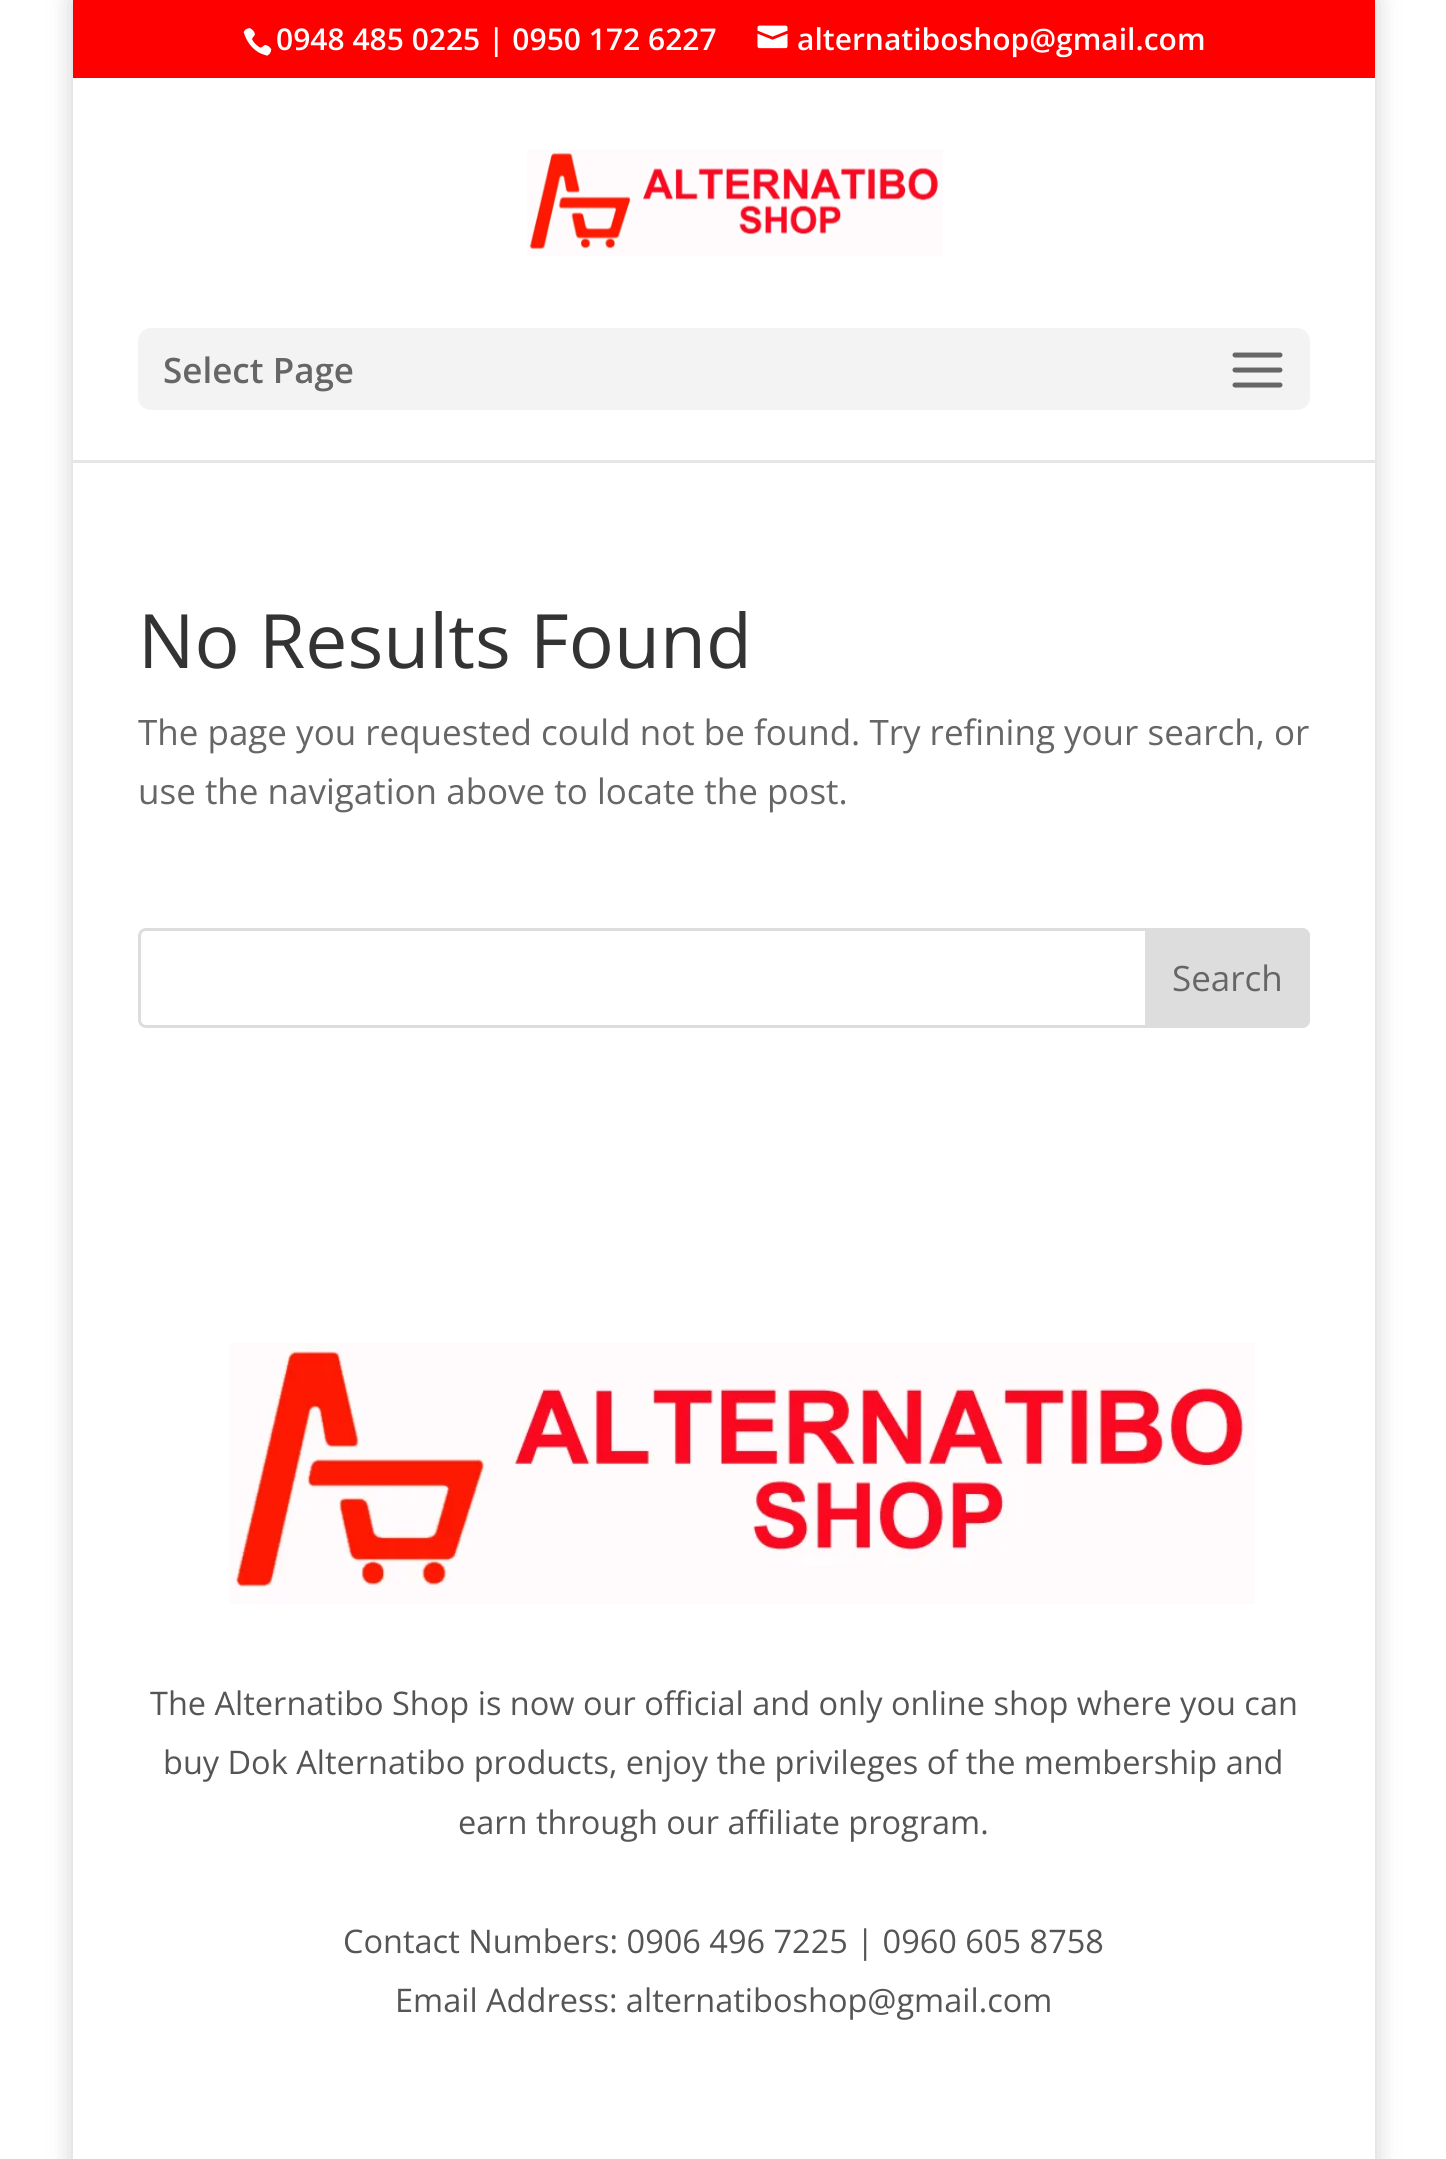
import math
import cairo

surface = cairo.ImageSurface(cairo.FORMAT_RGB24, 1446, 2159)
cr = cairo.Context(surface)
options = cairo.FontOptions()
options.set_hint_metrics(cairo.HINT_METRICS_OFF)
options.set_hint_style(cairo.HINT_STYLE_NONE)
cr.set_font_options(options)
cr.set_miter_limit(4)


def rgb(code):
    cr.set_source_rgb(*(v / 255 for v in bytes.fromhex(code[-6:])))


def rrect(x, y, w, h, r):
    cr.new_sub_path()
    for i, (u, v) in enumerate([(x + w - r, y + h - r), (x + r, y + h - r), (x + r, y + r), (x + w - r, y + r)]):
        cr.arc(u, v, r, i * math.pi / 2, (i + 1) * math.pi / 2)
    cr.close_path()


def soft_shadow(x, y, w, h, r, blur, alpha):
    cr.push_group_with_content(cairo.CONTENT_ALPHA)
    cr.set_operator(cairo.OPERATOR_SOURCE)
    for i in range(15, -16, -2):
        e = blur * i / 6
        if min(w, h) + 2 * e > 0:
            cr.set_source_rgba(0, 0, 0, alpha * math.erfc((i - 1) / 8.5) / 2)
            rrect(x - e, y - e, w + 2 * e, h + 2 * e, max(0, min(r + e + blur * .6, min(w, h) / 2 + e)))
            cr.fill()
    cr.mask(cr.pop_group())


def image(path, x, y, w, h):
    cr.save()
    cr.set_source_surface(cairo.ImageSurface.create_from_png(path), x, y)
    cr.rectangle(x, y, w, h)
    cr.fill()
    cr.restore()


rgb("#ffffff")
cr.paint()
cr.save()
cr.set_fill_rule(cairo.FILL_RULE_EVEN_ODD)
cr.new_path()
cr.move_to(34, 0)
cr.line_to(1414, 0)
cr.line_to(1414, 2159)
cr.line_to(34, 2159)
cr.close_path()
cr.move_to(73, 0)
cr.line_to(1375, 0)
cr.line_to(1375, 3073)
cr.line_to(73, 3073)
cr.close_path()
cr.clip()
rgb("#000000")
soft_shadow(73, 0, 1302, 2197, 0, 12.5, 0.2)
cr.restore()
rgb("#ff0000")
cr.rectangle(73, 0, 1302, 78)
cr.fill()
image("img/1.png", 243, 28, 29, 28)
image("img/2.png", 757, 25, 31, 24)
rgb("#e6e6e6")
cr.rectangle(73, 460, 1302, 3)
cr.fill()
image("img/3.png", 527, 149, 416, 107)
rgb("#f3f3f3")
rrect(138, 328, 1172, 82, 13)
cr.fill()
image("img/4.png", 1232, 352, 51, 36)
rrect(139.5, 929.5, 1169, 97, 6.5)
rgb("#dddddd")
cr.set_line_width(3)
cr.stroke()
cr.new_path()
cr.move_to(1146.5, 929.5)
cr.line_to(1302, 929.5)
cr.curve_to(1305.5, 929.5, 1308.5, 932.5, 1308.5, 936)
cr.line_to(1308.5, 1020)
cr.curve_to(1308.5, 1023.5, 1305.5, 1026.5, 1302, 1026.5)
cr.line_to(1146.5, 1026.5)
cr.close_path()
cr.fill_preserve()
cr.stroke()
image("img/5.png", 230, 1343, 1025, 261)
cr.select_font_face("Open Sans SemiBold")
cr.set_font_size(30)
rgb("#ffffff")
cr.move_to(276, 50)
cr.show_text("0948 485 0225 | 0950 172 6227")
cr.move_to(797, 50)
cr.show_text("alternatiboshop@gmail.com")
cr.set_font_size(35)
rgb("#666666")
cr.move_to(163, 383)
cr.show_text("Select Page")
cr.select_font_face("Open Sans")
cr.set_font_size(75)
rgb("#333333")
cr.move_to(138, 668)
cr.show_text("No Results Found")
cr.set_font_size(35)
rgb("#666666")
for x, y, s in [
    (138, 745, "The page you requested could not be found. Try refining your search, or"),
    (138, 804, "use the navigation above to locate the post."),
    (1172, 991, "Search"),
]:
    cr.move_to(x, y)
    cr.show_text(s)
cr.set_font_size(32.5)
rgb("#555555")
for x, y, s in [
    (150, 1715, "The Alternatibo Shop is now our official and only online shop where you can"),
    (163, 1774, "buy Dok Alternatibo products, enjoy the privileges of the membership and"),
    (458, 1834, "earn through our affiliate program."),
    (343, 1953, "Contact Numbers: 0906 496 7225 | 0960 605 8758"),
    (395, 2012, "Email Address: alternatiboshop@gmail.com"),
]:
    cr.move_to(x, y)
    cr.show_text(s)
surface.write_to_png("page.png")
